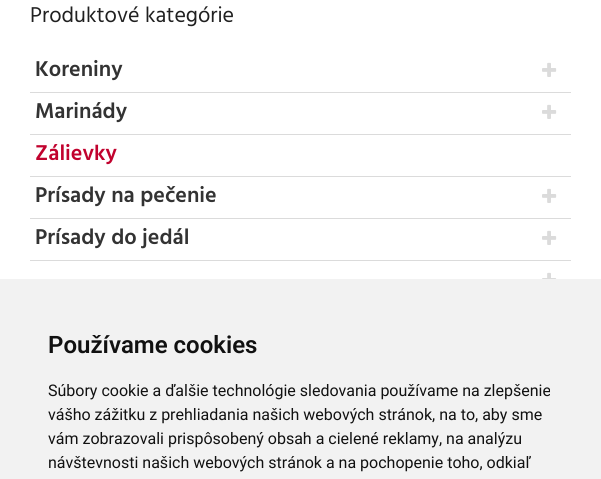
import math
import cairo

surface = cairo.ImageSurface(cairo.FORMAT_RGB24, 601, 479)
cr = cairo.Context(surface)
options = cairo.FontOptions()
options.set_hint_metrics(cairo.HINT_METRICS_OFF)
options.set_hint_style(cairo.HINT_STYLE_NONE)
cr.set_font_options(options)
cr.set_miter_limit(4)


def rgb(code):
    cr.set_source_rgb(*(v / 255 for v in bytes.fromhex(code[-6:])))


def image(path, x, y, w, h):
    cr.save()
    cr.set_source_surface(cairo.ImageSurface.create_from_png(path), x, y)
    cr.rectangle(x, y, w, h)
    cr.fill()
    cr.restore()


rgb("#ffffff")
cr.paint()
rgb("#dbdbdb")
cr.rectangle(30, 92, 541, 1)
cr.fill()
image("img/1.png", 542, 62, 15, 15)
cr.rectangle(30, 134, 541, 1)
cr.fill()
image("img/1.png", 542, 104, 15, 15)
cr.rectangle(30, 176, 541, 1)
cr.fill()
cr.rectangle(30, 218, 541, 1)
cr.fill()
image("img/1.png", 542, 188, 15, 15)
cr.rectangle(30, 260, 541, 1)
cr.fill()
image("img/1.png", 542, 230, 15, 15)
image("img/2.png", 542, 272, 15, 7)
rgb("#f2f2f2")
cr.rectangle(0, 279, 601, 200)
cr.fill()
cr.select_font_face("Hind")
cr.set_font_size(22)
rgb("#202020")
cr.move_to(30, 22)
cr.show_text("Produktové kategórie")
cr.select_font_face("Hind SemiBold")
rgb("#333333")
cr.move_to(35, 76)
cr.show_text("Koreniny")
cr.move_to(35, 118)
cr.show_text("Marinády")
rgb("#c1022e")
cr.move_to(35, 160)
cr.show_text("Zálievky")
rgb("#333333")
cr.move_to(35, 202)
cr.show_text("Prísady na pečenie")
cr.move_to(35, 244)
cr.show_text("Prísady do jedál")
cr.select_font_face("Roboto SemiBold")
cr.set_font_size(24)
rgb("#111111")
cr.move_to(48, 353)
cr.show_text("Používame cookies")
cr.select_font_face("Roboto")
cr.set_font_size(16)
for x, y, s in [
    (48, 396, "Súbory cookie a ďalšie technológie sledovania používame na zlepšenie"),
    (48, 420, "vášho zážitku z prehliadania našich webových stránok, na to, aby sme"),
    (48, 444, "vám zobrazovali prispôsobený obsah a cielené reklamy, na analýzu"),
    (48, 468, "návštevnosti našich webových stránok a na pochopenie toho, odkiaľ"),
]:
    cr.move_to(x, y)
    cr.show_text(s)
surface.write_to_png("page.png")
